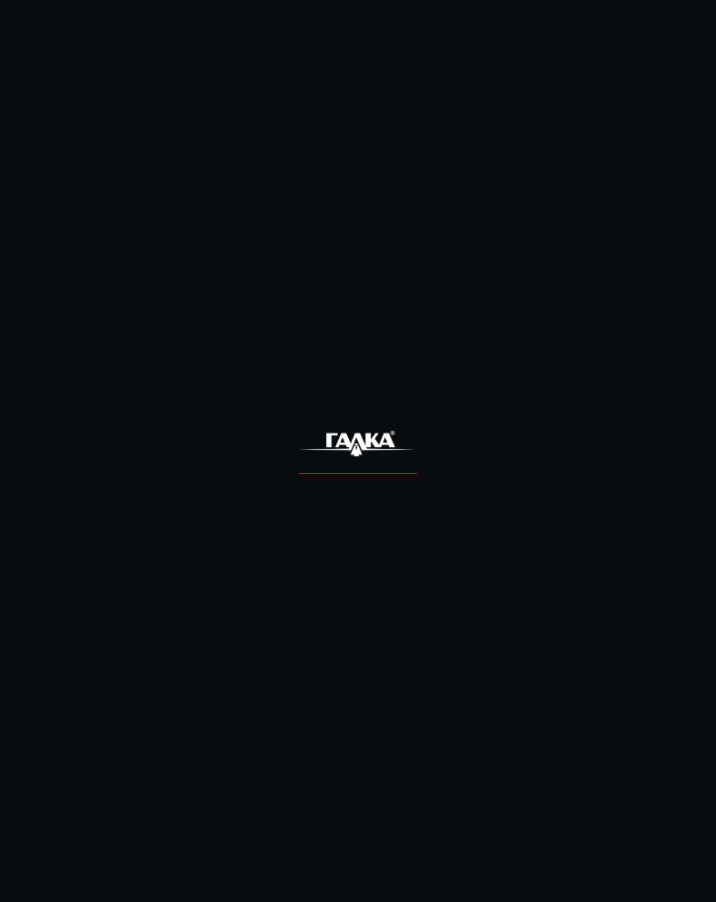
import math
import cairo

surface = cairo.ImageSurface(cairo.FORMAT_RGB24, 716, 902)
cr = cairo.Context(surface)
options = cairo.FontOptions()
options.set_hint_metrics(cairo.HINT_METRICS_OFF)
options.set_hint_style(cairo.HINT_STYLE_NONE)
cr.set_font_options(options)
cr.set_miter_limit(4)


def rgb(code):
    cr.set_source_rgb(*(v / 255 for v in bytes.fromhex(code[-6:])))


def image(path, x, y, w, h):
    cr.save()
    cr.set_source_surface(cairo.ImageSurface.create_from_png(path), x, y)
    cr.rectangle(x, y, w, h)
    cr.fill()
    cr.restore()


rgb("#090c0f")
cr.paint()
image("img/1.png", 299, 430, 116, 27)
rgb("#b01f18")
cr.rectangle(299, 473, 118, 1)
cr.fill()
surface.write_to_png("page.png")
